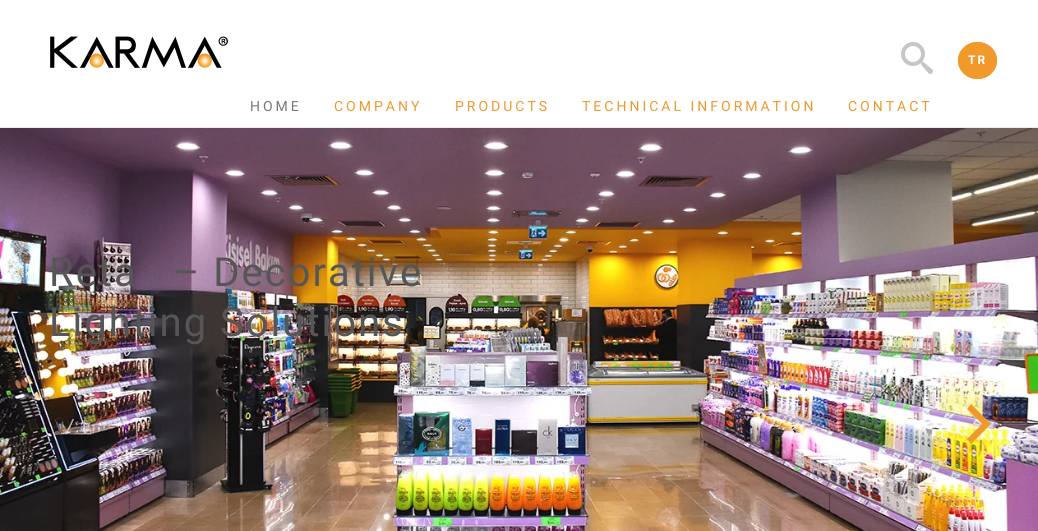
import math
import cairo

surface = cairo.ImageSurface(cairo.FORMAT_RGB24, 1038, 531)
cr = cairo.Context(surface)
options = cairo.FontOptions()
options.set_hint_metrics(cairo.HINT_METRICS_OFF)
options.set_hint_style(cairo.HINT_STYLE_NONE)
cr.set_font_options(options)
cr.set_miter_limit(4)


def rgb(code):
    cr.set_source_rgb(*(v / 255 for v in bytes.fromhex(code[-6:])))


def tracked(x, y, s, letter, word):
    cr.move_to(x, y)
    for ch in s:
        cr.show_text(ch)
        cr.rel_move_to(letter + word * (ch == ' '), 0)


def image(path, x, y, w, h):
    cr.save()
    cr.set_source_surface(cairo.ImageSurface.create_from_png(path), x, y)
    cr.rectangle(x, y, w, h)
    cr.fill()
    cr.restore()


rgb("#ffffff")
cr.paint()
rgb("#e9eaea")
cr.rectangle(0, 127, 1038, 1)
cr.fill()
image("img/1.png", 50, 36, 178, 32)
image("img/2.png", 901, 42, 32, 32)
rgb("#f19a2b")
cr.new_path()
cr.move_to(977.5, 42)
cr.curve_to(988.5, 42, 997, 50.5, 997, 60.5)
cr.curve_to(997, 70.5, 988.5, 79, 977.5, 79)
cr.curve_to(966.5, 79, 958, 70.5, 958, 60.5)
cr.curve_to(958, 50.5, 966.5, 42, 977.5, 42)
cr.close_path()
cr.fill()
cr.new_path()
cr.move_to(977.5, 42.5)
cr.curve_to(988, 42.5, 996.5, 50.5, 996.5, 60.5)
cr.curve_to(996.5, 70.5, 988, 78.5, 977.5, 78.5)
cr.curve_to(967, 78.5, 958.5, 70.5, 958.5, 60.5)
cr.curve_to(958.5, 50.5, 967, 42.5, 977.5, 42.5)
cr.close_path()
rgb("#ef992d")
cr.set_line_width(1)
cr.stroke()
image("img/3.png", 0, 128, 1038, 403)
cr.new_path()
cr.move_to(967, 439)
cr.line_to(982, 424)
cr.line_to(967, 409)
cr.line_to(971, 404)
cr.line_to(991, 424)
cr.line_to(971, 444)
cr.close_path()
cr.fill()
cr.select_font_face("Roboto", cairo.FONT_SLANT_NORMAL, cairo.FONT_WEIGHT_BOLD)
cr.set_font_size(12)
rgb("#ffffff")
tracked(968, 64, "TR", 2, 0)
cr.select_font_face("Roboto")
cr.set_font_size(14)
rgb("#777777")
tracked(250, 111, "HOME", 3, 0)
rgb("#ef992d")
for x, y, s in [
    (334, 111, "COMPANY"),
    (455, 111, "PRODUCTS"),
    (582, 111, "TECHNICAL INFORMATION"),
    (848, 111, "CONTACT"),
]:
    tracked(x, y, s, 3, 0)
cr.set_font_size(40)
rgb("#565656")
for x, y, s in [
    (49, 286, "Reta"),
    (173, 286, "– Decorative"),
    (49, 336, "Lighting Solutions"),
]:
    tracked(x, y, s, 2, 0)
surface.write_to_png("page.png")
